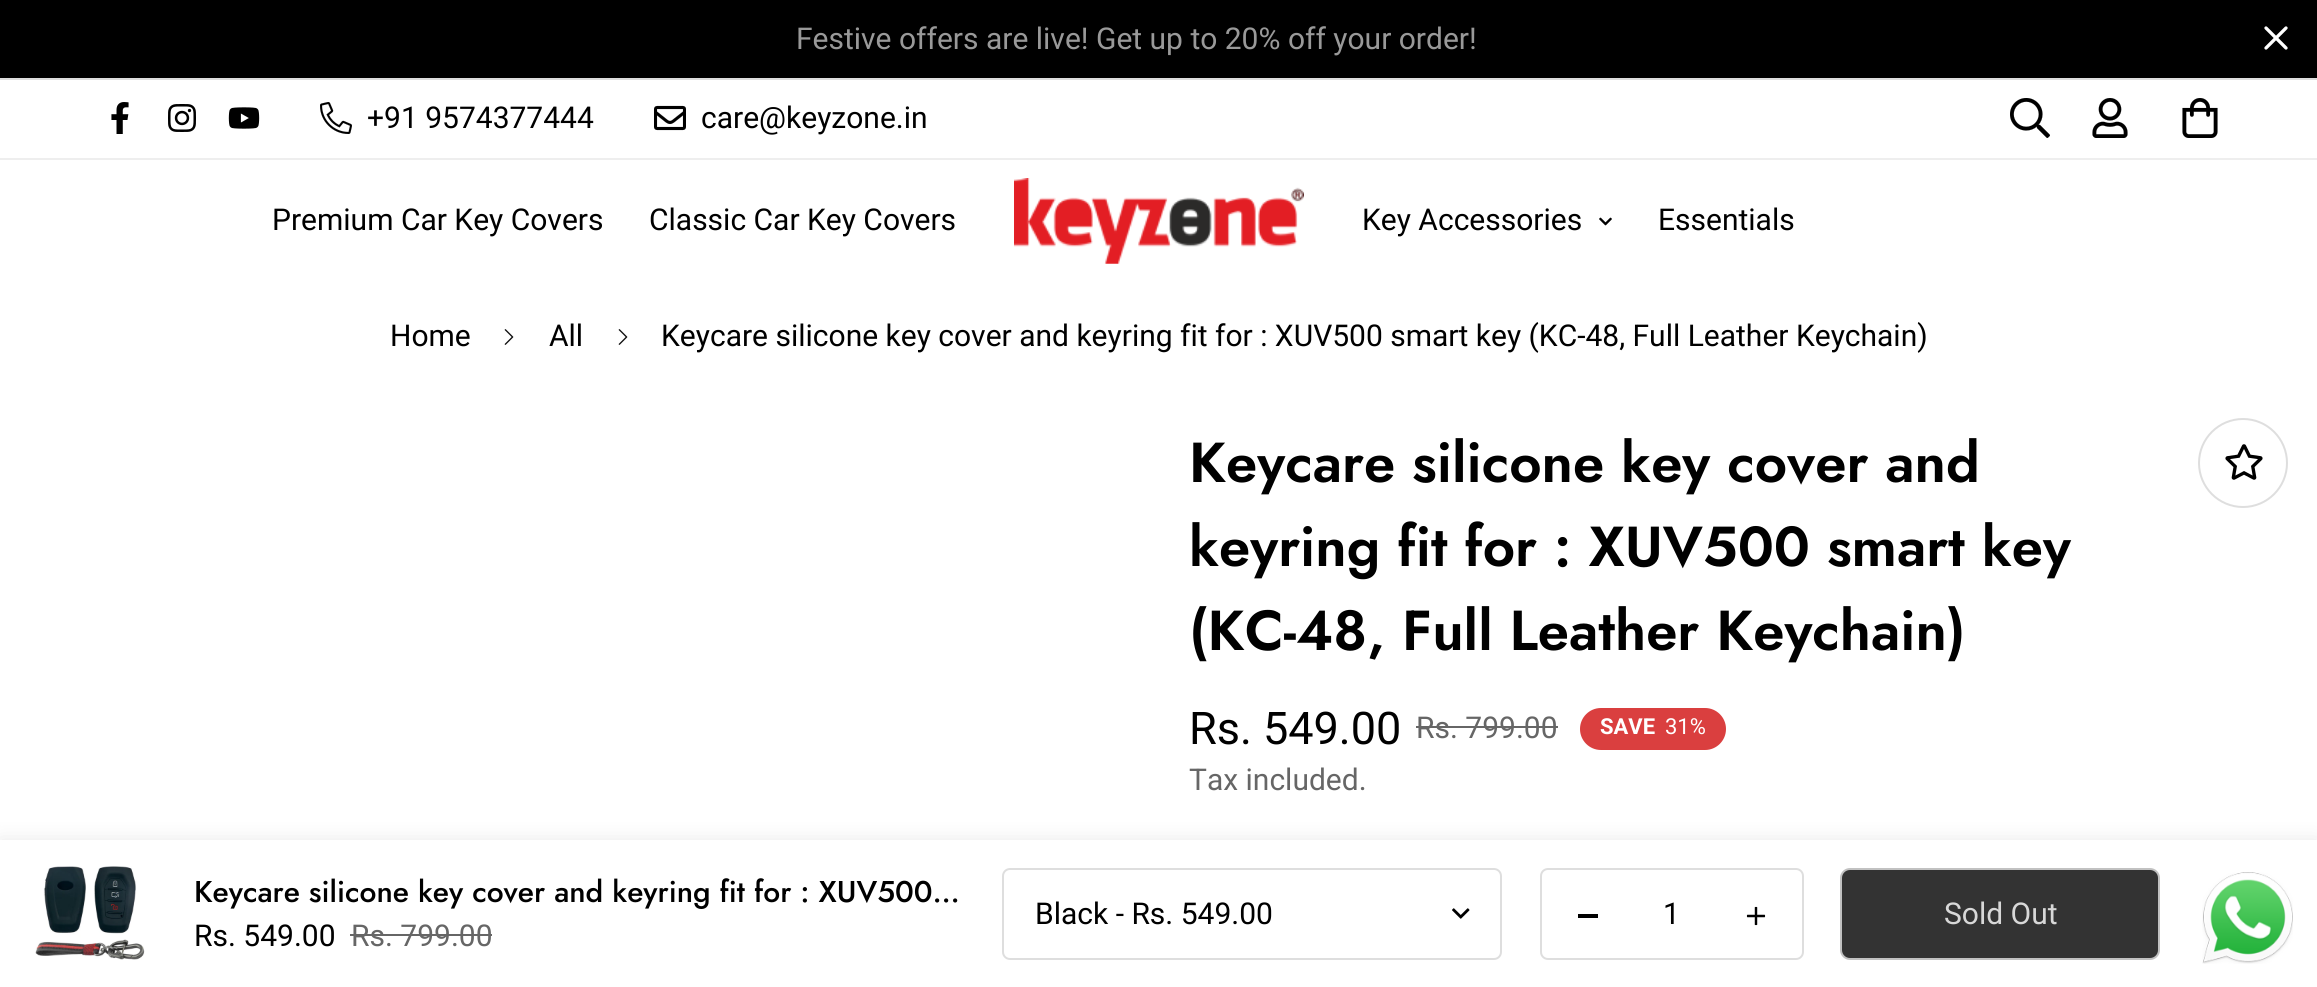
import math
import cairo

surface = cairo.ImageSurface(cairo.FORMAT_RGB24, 2317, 987)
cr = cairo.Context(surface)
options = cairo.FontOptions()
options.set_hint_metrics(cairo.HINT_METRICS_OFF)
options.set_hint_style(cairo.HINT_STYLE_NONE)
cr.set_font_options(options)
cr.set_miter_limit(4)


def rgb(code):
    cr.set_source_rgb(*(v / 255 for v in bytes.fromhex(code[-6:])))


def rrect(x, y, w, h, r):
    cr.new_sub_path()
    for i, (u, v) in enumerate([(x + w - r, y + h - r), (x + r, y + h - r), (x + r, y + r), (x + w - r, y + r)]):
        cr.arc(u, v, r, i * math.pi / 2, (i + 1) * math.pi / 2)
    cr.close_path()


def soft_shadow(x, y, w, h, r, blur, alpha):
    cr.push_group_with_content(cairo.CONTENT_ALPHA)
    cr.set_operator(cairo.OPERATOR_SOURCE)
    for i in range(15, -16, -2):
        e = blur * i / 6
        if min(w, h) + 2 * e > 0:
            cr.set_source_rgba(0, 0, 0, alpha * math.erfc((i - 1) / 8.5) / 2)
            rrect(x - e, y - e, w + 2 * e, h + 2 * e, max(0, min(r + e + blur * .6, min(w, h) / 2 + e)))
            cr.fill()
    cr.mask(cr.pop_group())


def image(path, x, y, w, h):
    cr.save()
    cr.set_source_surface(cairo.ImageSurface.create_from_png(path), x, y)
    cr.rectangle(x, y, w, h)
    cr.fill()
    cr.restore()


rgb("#ffffff")
cr.paint()
rgb("#000000")
cr.rectangle(0, 0, 2317, 78)
cr.fill()
rgb("#dedede")
cr.rectangle(0, 78, 2317, 2)
cr.fill()
cr.new_path()
cr.move_to(2266, 48)
cr.line_to(2286, 28)
cr.move_to(2266, 28)
cr.line_to(2286, 48)
rgb("#ffffff")
cr.set_line_width(3.3)
cr.set_line_cap(cairo.LINE_CAP_ROUND)
cr.set_line_join(cairo.LINE_JOIN_ROUND)
cr.stroke()
rgb("#eeeeee")
cr.rectangle(0, 158, 2317, 2)
cr.fill()
image("img/1.png", 111, 102, 18, 32)
image("img/2.png", 168, 104, 28, 28)
image("img/3.png", 228, 107, 32, 22)
image("img/4.png", 320, 102, 32, 32)
image("img/5.png", 654, 105, 32, 26)
image("img/6.png", 2010, 98, 40, 40)
image("img/7.png", 2092, 98, 36, 40)
image("img/8.png", 2182, 98, 36, 40)
image("img/9.png", 1014, 178, 290, 86)
image("img/10.png", 1599, 217, 13, 9)
image("img/11.png", 504, 329, 10, 16)
image("img/11.png", 618, 329, 10, 16)
cr.arc(2243, 463, 44, 0, 2 * math.pi)
rgb("#dedede")
cr.set_line_width(2)
cr.set_line_cap(cairo.LINE_CAP_BUTT)
cr.set_line_join(cairo.LINE_JOIN_MITER)
cr.stroke()
image("img/12.png", 2225, 444, 38, 36)
rgb("#666666")
cr.rectangle(1416, 726, 142, 2)
cr.fill()
rgb("#da3f3f")
rrect(1580, 708, 146, 42, 21)
cr.fill()
rgb("#000000")
soft_shadow(0, 840, 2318, 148, 0, 10, 0.09)
rgb("#ffffff")
cr.rectangle(0, 840, 2317, 147)
cr.fill()
image("img/13.png", 35, 866, 110, 94)
rgb("#666666")
cr.rectangle(350, 934, 142, 2)
cr.fill()
image("img/14.png", 1452, 908, 18, 11)
rrect(1003, 869, 498, 90, 7)
rgb("#dedede")
cr.stroke()
rrect(1541, 869, 262, 90, 7)
cr.stroke()
rgb("#000000")
cr.rectangle(1578, 914, 20, 4)
cr.fill()
image("img/15.png", 1746, 906, 20, 20)
rgb("#333333")
rrect(1841, 869, 318, 90, 9)
cr.fill_preserve()
rgb("#c1c1c1")
cr.stroke()
image("img/16.png", 2202, 872, 91, 92)
cr.select_font_face("Roboto")
cr.set_font_size(30)
rgb("#999999")
cr.move_to(796, 49)
cr.show_text("Festive offers are live! Get up to 20% off your order!")
rgb("#000000")
for x, y, s in [
    (367, 128, "+91 9574377444"),
    (701, 128, "care@keyzone.in"),
    (272, 230, "Premium Car Key Covers"),
    (649, 230, "Classic Car Key Covers"),
    (1362, 230, "Key Accessories"),
    (1658, 230, "Essentials"),
    (390, 346, "Home"),
    (549, 346, "All"),
    (661, 346, "Keycare silicone key cover and keyring fit for : XUV500 smart key (KC-48, Full Leather Keychain)"),
]:
    cr.move_to(x, y)
    cr.show_text(s)
cr.select_font_face("Jost SemiBold")
cr.set_font_size(56.25)
for x, y, s in [
    (1189, 482, "Keycare silicone key cover and"),
    (1189, 566, "keyring fit for : XUV500 smart key"),
    (1189, 650, "(KC-48, Full Leather Keychain)"),
]:
    cr.move_to(x, y)
    cr.show_text(s)
cr.select_font_face("Roboto")
cr.set_font_size(45)
cr.move_to(1189, 744)
cr.show_text("Rs. 549.00")
cr.set_font_size(30)
rgb("#666666")
cr.move_to(1416, 738)
cr.show_text("Rs. 799.00")
cr.select_font_face("Roboto", cairo.FONT_SLANT_NORMAL, cairo.FONT_WEIGHT_BOLD)
cr.set_font_size(22)
rgb("#ffffff")
cr.move_to(1600, 734)
cr.show_text("SAVE")
cr.select_font_face("Roboto")
cr.move_to(1665, 734)
cr.show_text("31%")
cr.set_font_size(30)
rgb("#666666")
cr.move_to(1189, 790)
cr.show_text("Tax included.")
cr.select_font_face("Jost Medium")
rgb("#000000")
cr.move_to(194, 902)
cr.show_text("Keycare silicone key cover and keyring fit for : XUV500…")
cr.select_font_face("Roboto")
cr.move_to(194, 946)
cr.show_text("Rs. 549.00")
rgb("#666666")
cr.move_to(351, 946)
cr.show_text("Rs. 799.00")
rgb("#000000")
cr.move_to(1035, 924)
cr.show_text("Black - Rs. 549.00")
cr.move_to(1663, 924)
cr.show_text("1")
rgb("#d8d8d8")
cr.move_to(1944, 924)
cr.show_text("Sold Out")
surface.write_to_png("page.png")
